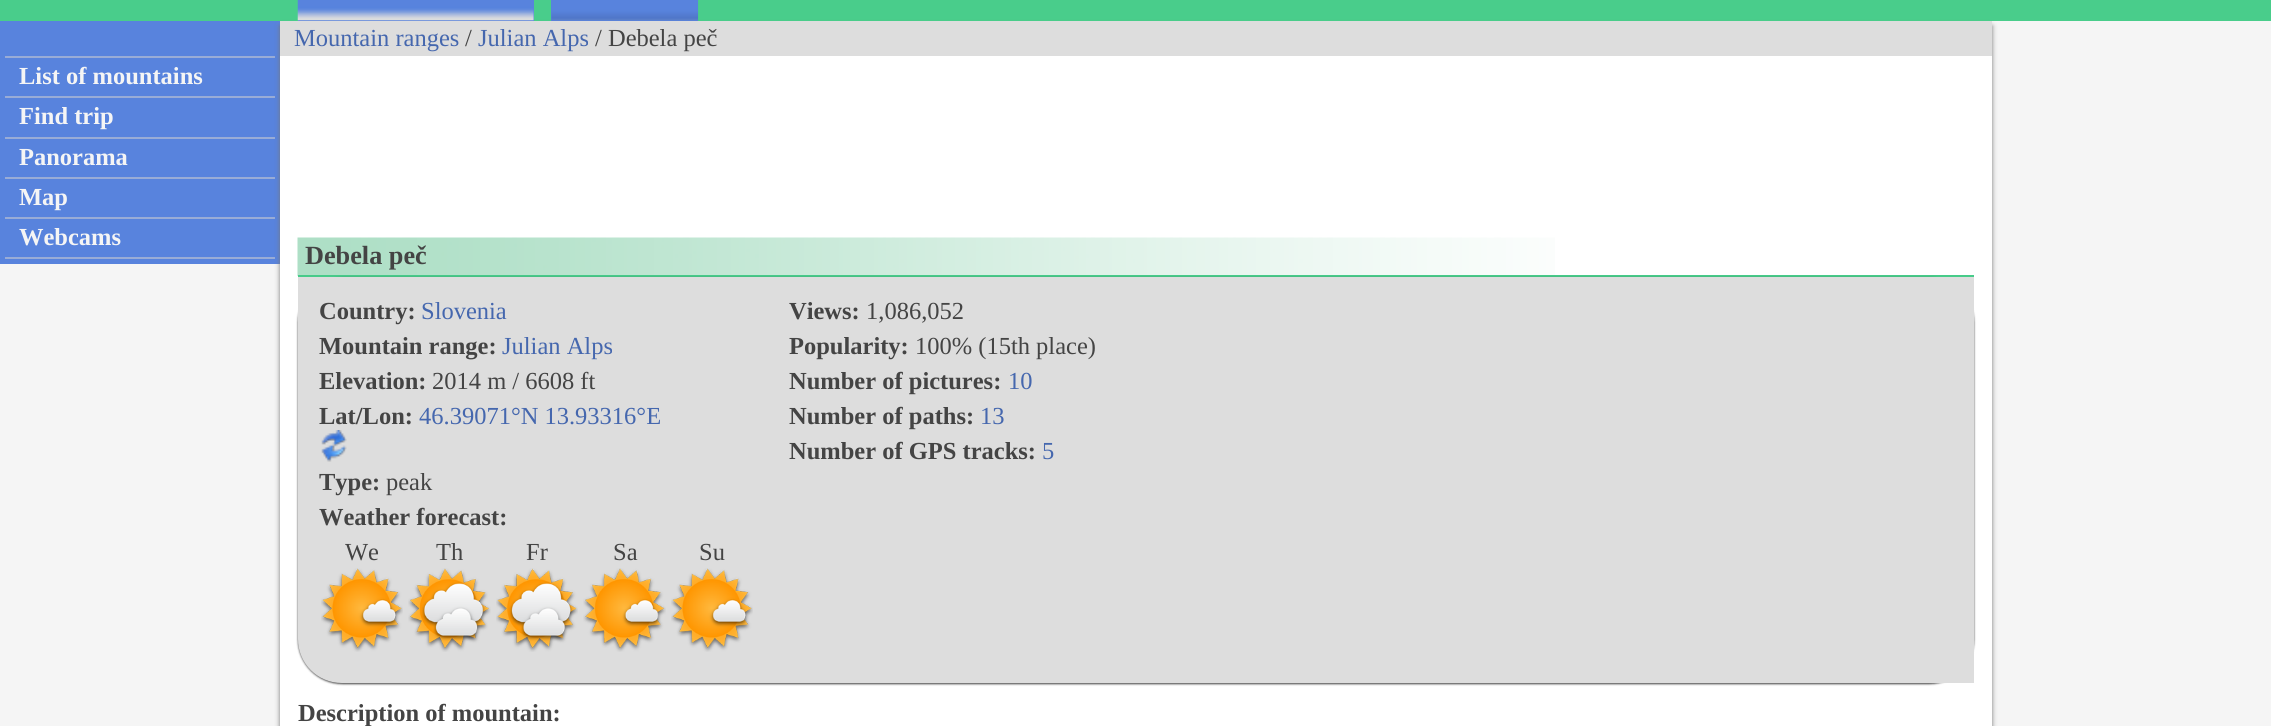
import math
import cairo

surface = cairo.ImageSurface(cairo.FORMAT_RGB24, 2271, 726)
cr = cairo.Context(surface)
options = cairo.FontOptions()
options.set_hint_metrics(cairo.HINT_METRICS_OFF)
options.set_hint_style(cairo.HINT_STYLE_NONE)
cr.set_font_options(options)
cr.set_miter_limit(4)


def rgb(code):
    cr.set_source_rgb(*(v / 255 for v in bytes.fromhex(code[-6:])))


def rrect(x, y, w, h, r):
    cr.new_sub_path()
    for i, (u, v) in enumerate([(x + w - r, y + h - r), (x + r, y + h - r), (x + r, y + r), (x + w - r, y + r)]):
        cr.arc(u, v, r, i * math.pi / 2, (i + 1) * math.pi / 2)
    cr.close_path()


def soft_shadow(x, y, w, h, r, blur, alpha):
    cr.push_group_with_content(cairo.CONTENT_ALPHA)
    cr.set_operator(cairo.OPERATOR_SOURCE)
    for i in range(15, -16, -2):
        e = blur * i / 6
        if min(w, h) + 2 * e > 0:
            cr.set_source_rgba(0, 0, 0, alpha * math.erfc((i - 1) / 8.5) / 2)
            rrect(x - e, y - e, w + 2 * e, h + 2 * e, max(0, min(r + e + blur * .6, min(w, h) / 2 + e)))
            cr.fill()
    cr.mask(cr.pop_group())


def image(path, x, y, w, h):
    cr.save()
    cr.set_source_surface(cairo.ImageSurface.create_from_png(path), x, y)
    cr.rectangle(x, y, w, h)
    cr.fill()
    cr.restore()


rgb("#f5f5f5")
cr.paint()
rgb("#49cd8b")
cr.rectangle(0, 0, 2271, 21)
cr.fill()
rgb("#5883dd")
cr.rectangle(298, 0, 236, 21)
cr.fill()
image("img/1.png", 297, 0, 237, 21)
cr.rectangle(551, 0, 147, 21)
cr.fill()
image("img/2.png", 551, 0, 148, 21)
for x, y, w, h, color in [
    (0, 21, 280, 243, "#5883dd"),
    (5, 56, 270, 2, "#99acd6"),
    (5, 96, 270, 2, "#99acd6"),
    (5, 137, 270, 2, "#99acd6"),
    (5, 177, 270, 2, "#99acd6"),
    (5, 217, 270, 2, "#99acd6"),
    (5, 257, 270, 2, "#99acd6"),
]:
    rgb(color)
    cr.rectangle(x, y, w, h)
    cr.fill()
rgb("#777777")
soft_shadow(280, 26, 1712, 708, 0, 2.5, 1)
rgb("#ffffff")
cr.rectangle(280, 56, 1712, 670)
cr.fill()
rgb("#dddddd")
cr.rectangle(280, 21, 1712, 35)
cr.fill()
image("img/3.png", 297, 237, 1258, 39)
rgb("#47cb89")
cr.rectangle(298, 275, 1676, 2)
cr.fill()
rgb("#444444")
soft_shadow(298, 278, 1676, 406, 44, 1, 1)
rgb("#dddddd")
cr.new_path()
cr.move_to(298, 277)
cr.line_to(1974, 277)
cr.line_to(1974, 683)
cr.line_to(342, 683)
cr.curve_to(317.5, 683, 298, 663.5, 298, 639)
cr.close_path()
cr.fill()
image("img/4.png", 321, 430, 26, 32)
image("img/5.png", 321, 568, 82, 84)
image("img/6.png", 408, 568, 83, 84)
image("img/7.png", 496, 568, 82, 84)
image("img/8.png", 583, 568, 83, 84)
image("img/5.png", 671, 568, 82, 84)
cr.select_font_face("Liberation Serif", cairo.FONT_SLANT_NORMAL, cairo.FONT_WEIGHT_BOLD)
cr.set_font_size(24.5)
rgb("#f5f5f5")
for x, y, s in [
    (19, 84, "List of mountains"),
    (19, 124, "Find trip"),
    (19, 165, "Panorama"),
    (19, 205, "Map"),
    (19, 245, "Webcams"),
]:
    cr.move_to(x, y)
    cr.show_text(s)
cr.select_font_face("Liberation Serif")
rgb("#4567ae")
cr.move_to(294, 46)
cr.show_text("Mountain ranges")
rgb("#444444")
cr.move_to(465, 46)
cr.show_text("/")
rgb("#4567ae")
cr.move_to(478, 46)
cr.show_text("Julian Alps")
rgb("#444444")
cr.move_to(595, 46)
cr.show_text("/ Debela peč")
cr.select_font_face("Liberation Serif", cairo.FONT_SLANT_NORMAL, cairo.FONT_WEIGHT_BOLD)
cr.set_font_size(26.25)
cr.move_to(305, 264)
cr.show_text("Debela peč")
cr.set_font_size(24.5)
cr.move_to(319, 319)
cr.show_text("Country:")
cr.select_font_face("Liberation Serif")
rgb("#4567ae")
cr.move_to(421, 319)
cr.show_text("Slovenia")
cr.select_font_face("Liberation Serif", cairo.FONT_SLANT_NORMAL, cairo.FONT_WEIGHT_BOLD)
rgb("#444444")
cr.move_to(319, 354)
cr.show_text("Mountain range:")
cr.select_font_face("Liberation Serif")
rgb("#4567ae")
cr.move_to(502, 354)
cr.show_text("Julian Alps")
cr.select_font_face("Liberation Serif", cairo.FONT_SLANT_NORMAL, cairo.FONT_WEIGHT_BOLD)
rgb("#444444")
cr.move_to(319, 389)
cr.show_text("Elevation:")
cr.select_font_face("Liberation Serif")
cr.move_to(432, 389)
cr.show_text("2014 m / 6608 ft")
cr.select_font_face("Liberation Serif", cairo.FONT_SLANT_NORMAL, cairo.FONT_WEIGHT_BOLD)
cr.move_to(319, 424)
cr.show_text("Lat/Lon:")
cr.select_font_face("Liberation Serif")
rgb("#4567ae")
cr.move_to(419, 424)
cr.show_text("46.39071°N 13.93316°E")
cr.select_font_face("Liberation Serif", cairo.FONT_SLANT_NORMAL, cairo.FONT_WEIGHT_BOLD)
rgb("#444444")
cr.move_to(319, 490)
cr.show_text("Type:")
cr.select_font_face("Liberation Serif")
cr.move_to(386, 490)
cr.show_text("peak")
cr.select_font_face("Liberation Serif", cairo.FONT_SLANT_NORMAL, cairo.FONT_WEIGHT_BOLD)
cr.move_to(319, 525)
cr.show_text("Weather forecast:")
cr.select_font_face("Liberation Serif")
for x, y, s in [
    (345, 560, "We"),
    (436, 560, "Th"),
    (526, 560, "Fr"),
    (613, 560, "Sa"),
    (699, 560, "Su"),
]:
    cr.move_to(x, y)
    cr.show_text(s)
cr.select_font_face("Liberation Serif", cairo.FONT_SLANT_NORMAL, cairo.FONT_WEIGHT_BOLD)
cr.move_to(789, 319)
cr.show_text("Views:")
cr.select_font_face("Liberation Serif")
cr.move_to(866, 319)
cr.show_text("1,086,052")
cr.select_font_face("Liberation Serif", cairo.FONT_SLANT_NORMAL, cairo.FONT_WEIGHT_BOLD)
cr.move_to(789, 354)
cr.show_text("Popularity:")
cr.select_font_face("Liberation Serif")
cr.move_to(915, 354)
cr.show_text("100% (15th place)")
cr.select_font_face("Liberation Serif", cairo.FONT_SLANT_NORMAL, cairo.FONT_WEIGHT_BOLD)
cr.move_to(789, 389)
cr.show_text("Number of pictures:")
cr.select_font_face("Liberation Serif")
rgb("#4567ae")
cr.move_to(1008, 389)
cr.show_text("10")
cr.select_font_face("Liberation Serif", cairo.FONT_SLANT_NORMAL, cairo.FONT_WEIGHT_BOLD)
rgb("#444444")
cr.move_to(789, 424)
cr.show_text("Number of paths:")
cr.select_font_face("Liberation Serif")
rgb("#4567ae")
cr.move_to(980, 424)
cr.show_text("13")
cr.select_font_face("Liberation Serif", cairo.FONT_SLANT_NORMAL, cairo.FONT_WEIGHT_BOLD)
rgb("#444444")
cr.move_to(789, 459)
cr.show_text("Number of GPS tracks:")
cr.select_font_face("Liberation Serif")
rgb("#4567ae")
cr.move_to(1042, 459)
cr.show_text("5")
cr.select_font_face("Liberation Serif", cairo.FONT_SLANT_NORMAL, cairo.FONT_WEIGHT_BOLD)
rgb("#444444")
cr.move_to(298, 721)
cr.show_text("Description of mountain:")
surface.write_to_png("page.png")
